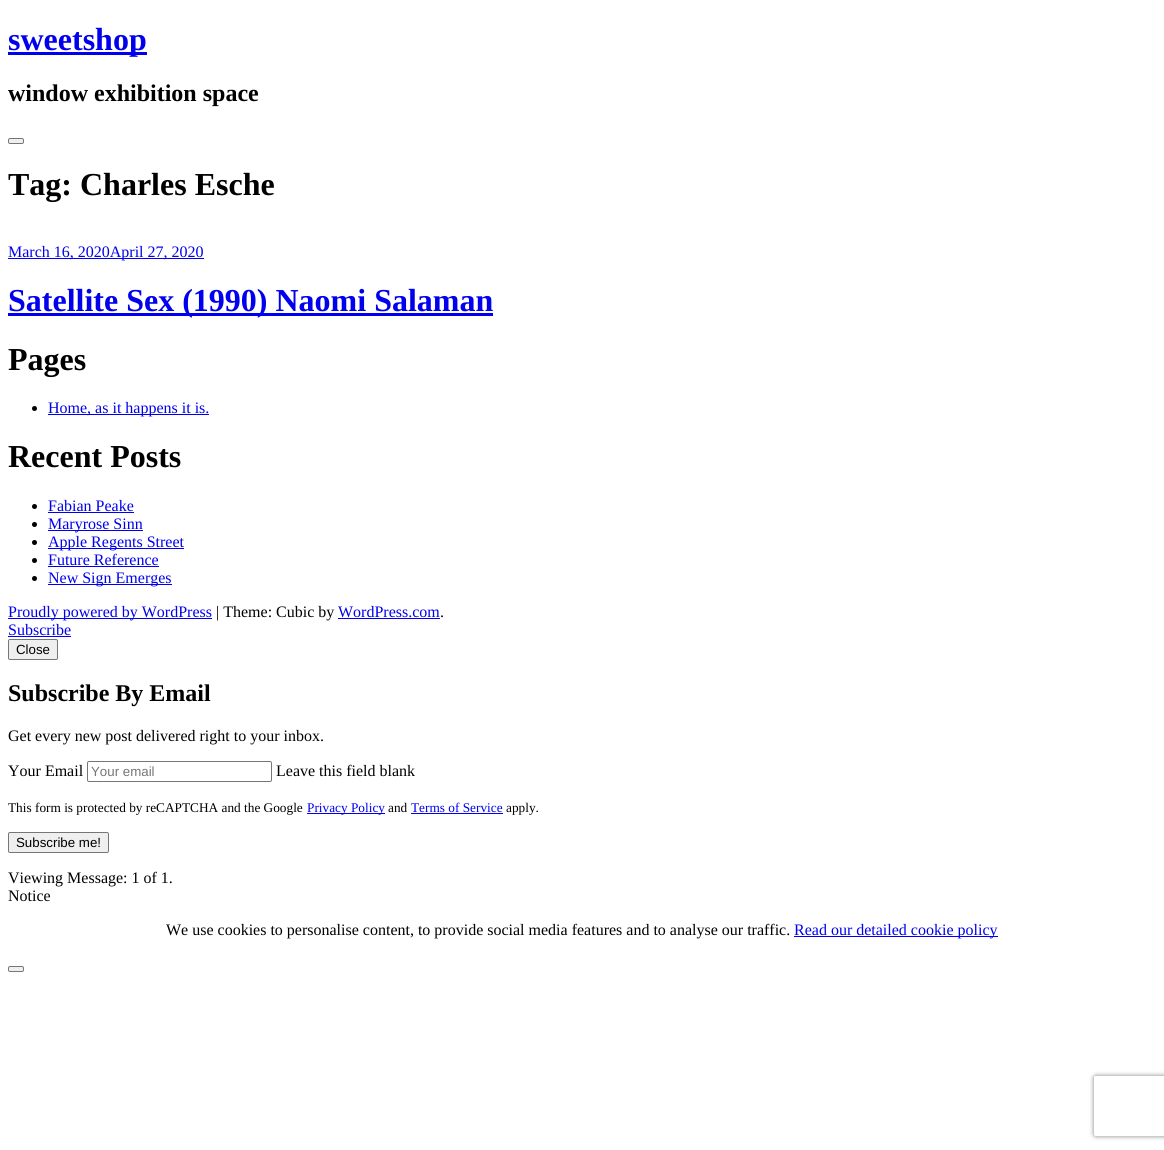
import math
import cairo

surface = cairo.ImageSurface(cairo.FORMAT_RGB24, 1164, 1150)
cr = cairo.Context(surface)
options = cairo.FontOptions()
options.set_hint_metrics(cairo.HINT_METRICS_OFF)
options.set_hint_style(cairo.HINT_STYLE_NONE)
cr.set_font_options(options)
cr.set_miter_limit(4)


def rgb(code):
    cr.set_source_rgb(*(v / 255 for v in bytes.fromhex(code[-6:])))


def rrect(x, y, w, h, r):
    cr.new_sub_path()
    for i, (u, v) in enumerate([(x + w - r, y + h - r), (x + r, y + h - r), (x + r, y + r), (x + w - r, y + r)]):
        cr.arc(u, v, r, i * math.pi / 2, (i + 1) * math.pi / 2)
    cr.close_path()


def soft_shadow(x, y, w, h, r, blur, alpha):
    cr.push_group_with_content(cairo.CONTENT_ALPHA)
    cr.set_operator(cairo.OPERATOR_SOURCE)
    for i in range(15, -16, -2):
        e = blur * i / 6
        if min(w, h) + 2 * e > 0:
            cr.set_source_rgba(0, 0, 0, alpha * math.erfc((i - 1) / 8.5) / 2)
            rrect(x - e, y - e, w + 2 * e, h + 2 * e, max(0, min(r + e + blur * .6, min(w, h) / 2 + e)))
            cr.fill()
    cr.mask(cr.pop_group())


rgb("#ffffff")
cr.paint()
rgb("#0000ee")
cr.rectangle(8, 52, 139, 3)
cr.fill()
rgb("#efefef")
rrect(8.5, 138.5, 15, 5, 1.5)
cr.fill_preserve()
rgb("#767676")
cr.set_line_width(1)
cr.stroke()
rgb("#0000ee")
cr.rectangle(8, 258, 196, 1)
cr.fill()
cr.rectangle(8, 313, 485, 3)
cr.fill()
rgb("#000000")
cr.arc(34.5, 408.5, 2.5, 0, 2 * math.pi)
cr.fill()
rgb("#0000ee")
cr.rectangle(48, 414, 161, 1)
cr.fill()
rgb("#000000")
cr.arc(34.5, 506.5, 2.5, 0, 2 * math.pi)
cr.fill()
rgb("#0000ee")
cr.rectangle(48, 512, 86, 1)
cr.fill()
rgb("#000000")
cr.arc(34.5, 524.5, 2.5, 0, 2 * math.pi)
cr.fill()
rgb("#0000ee")
cr.rectangle(48, 530, 95, 1)
cr.fill()
rgb("#000000")
cr.arc(34.5, 542.5, 2.5, 0, 2 * math.pi)
cr.fill()
rgb("#0000ee")
cr.rectangle(48, 548, 136, 1)
cr.fill()
rgb("#000000")
cr.arc(34.5, 560.5, 2.5, 0, 2 * math.pi)
cr.fill()
rgb("#0000ee")
cr.rectangle(48, 566, 111, 1)
cr.fill()
rgb("#000000")
cr.arc(34.5, 578.5, 2.5, 0, 2 * math.pi)
cr.fill()
for x, y, w, h, color in [
    (48, 584, 124, 1, "#0000ee"),
    (8, 618, 204, 1, "#0000ee"),
    (338, 618, 102, 1, "#0000ee"),
    (8, 636, 63, 1, "#0000ee"),
]:
    rgb(color)
    cr.rectangle(x, y, w, h)
    cr.fill()
rgb("#efefef")
rrect(8.5, 639.5, 49, 20, 1.5)
cr.fill_preserve()
rgb("#767676")
cr.stroke()
rrect(87.5, 761.5, 184, 20, 1.5)
cr.stroke()
rgb("#0000ee")
cr.rectangle(307, 813, 78, 1)
cr.fill()
cr.rectangle(411, 813, 92, 1)
cr.fill()
rgb("#efefef")
rrect(8.5, 832.5, 100, 20, 1.5)
cr.fill_preserve()
rgb("#767676")
cr.stroke()
rgb("#0000ee")
cr.rectangle(794, 936, 204, 1)
cr.fill()
rgb("#efefef")
rrect(8.5, 966.5, 15, 5, 1.5)
cr.fill_preserve()
rgb("#767676")
cr.stroke()
cr.save()
cr.set_fill_rule(cairo.FILL_RULE_EVEN_ODD)
cr.new_path()
cr.move_to(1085, 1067)
cr.line_to(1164, 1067)
cr.line_to(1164, 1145)
cr.line_to(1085, 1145)
cr.close_path()
cr.move_to(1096, 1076)
cr.line_to(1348, 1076)
cr.curve_to(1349, 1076, 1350, 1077, 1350, 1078)
cr.line_to(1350, 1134)
cr.curve_to(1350, 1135, 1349, 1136, 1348, 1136)
cr.line_to(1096, 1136)
cr.curve_to(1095, 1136, 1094, 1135, 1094, 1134)
cr.line_to(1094, 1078)
cr.curve_to(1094, 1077, 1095, 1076, 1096, 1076)
cr.close_path()
cr.clip()
rgb("#808080")
soft_shadow(1094, 1076, 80, 60, 2, 2.5, 1)
cr.restore()
cr.select_font_face("Liberation Serif", cairo.FONT_SLANT_NORMAL, cairo.FONT_WEIGHT_BOLD)
cr.set_font_size(32)
rgb("#0000ee")
cr.move_to(8, 50)
cr.show_text("sweetshop")
cr.set_font_size(24)
rgb("#000000")
cr.move_to(8, 101)
cr.show_text("window exhibition space")
cr.set_font_size(32)
cr.move_to(8, 195)
cr.show_text("Tag: Charles Esche")
cr.select_font_face("Liberation Serif")
cr.set_font_size(16)
rgb("#0000ee")
cr.move_to(8, 257)
cr.show_text("March 16, 2020April 27, 2020")
cr.select_font_face("Liberation Serif", cairo.FONT_SLANT_NORMAL, cairo.FONT_WEIGHT_BOLD)
cr.set_font_size(32)
cr.move_to(8, 311)
cr.show_text("Satellite Sex (1990) Naomi Salaman")
rgb("#000000")
cr.move_to(8, 370)
cr.show_text("Pages")
cr.select_font_face("Liberation Serif")
cr.set_font_size(16)
rgb("#0000ee")
cr.move_to(48, 413)
cr.show_text("Home, as it happens it is.")
cr.select_font_face("Liberation Serif", cairo.FONT_SLANT_NORMAL, cairo.FONT_WEIGHT_BOLD)
cr.set_font_size(32)
rgb("#000000")
cr.move_to(8, 467)
cr.show_text("Recent Posts")
cr.select_font_face("Liberation Serif")
cr.set_font_size(16)
rgb("#0000ee")
for x, y, s in [
    (48, 511, "Fabian Peake"),
    (48, 529, "Maryrose Sinn"),
    (48, 547, "Apple Regents Street"),
    (48, 565, "Future Reference"),
    (48, 583, "New Sign Emerges"),
    (8, 617, "Proudly powered by WordPress"),
]:
    cr.move_to(x, y)
    cr.show_text(s)
rgb("#000000")
cr.move_to(216, 617)
cr.show_text("| Theme: Cubic by")
rgb("#0000ee")
cr.move_to(338, 617)
cr.show_text("WordPress.com")
rgb("#000000")
cr.move_to(440, 617)
cr.show_text(".")
rgb("#0000ee")
cr.move_to(8, 635)
cr.show_text("Subscribe")
cr.select_font_face("Liberation Sans")
cr.set_font_size(13.3)
rgb("#000000")
cr.move_to(16, 654)
cr.show_text("Close")
cr.select_font_face("Liberation Serif", cairo.FONT_SLANT_NORMAL, cairo.FONT_WEIGHT_BOLD)
cr.set_font_size(24)
cr.move_to(8, 701)
cr.show_text("Subscribe By Email")
cr.select_font_face("Liberation Serif")
cr.set_font_size(16)
cr.move_to(8, 741)
cr.show_text("Get every new post delivered right to your inbox.")
cr.move_to(8, 776)
cr.show_text("Your Email")
cr.select_font_face("Liberation Sans")
cr.set_font_size(13.3)
rgb("#757575")
cr.move_to(91, 776)
cr.show_text("Your email")
cr.select_font_face("Liberation Serif")
cr.set_font_size(16)
rgb("#000000")
cr.move_to(276, 776)
cr.show_text("Leave this field blank")
cr.set_font_size(13.3)
cr.move_to(8, 812)
cr.show_text("This form is protected by reCAPTCHA and the Google")
rgb("#0000ee")
cr.move_to(307, 812)
cr.show_text("Privacy Policy")
rgb("#000000")
cr.move_to(388, 812)
cr.show_text("and")
rgb("#0000ee")
cr.move_to(411, 812)
cr.show_text("Terms of Service")
rgb("#000000")
cr.move_to(506, 812)
cr.show_text("apply.")
cr.select_font_face("Liberation Sans")
cr.move_to(16, 847)
cr.show_text("Subscribe me!")
cr.select_font_face("Liberation Serif")
cr.set_font_size(16)
for x, y, s in [
    (8, 883, "Viewing Message: 1 of 1."),
    (8, 901, "Notice"),
    (166, 935, "We use cookies to personalise content, to provide social media features and to analyse our traffic."),
]:
    cr.move_to(x, y)
    cr.show_text(s)
rgb("#0000ee")
cr.move_to(794, 935)
cr.show_text("Read our detailed cookie policy")
surface.write_to_png("page.png")
